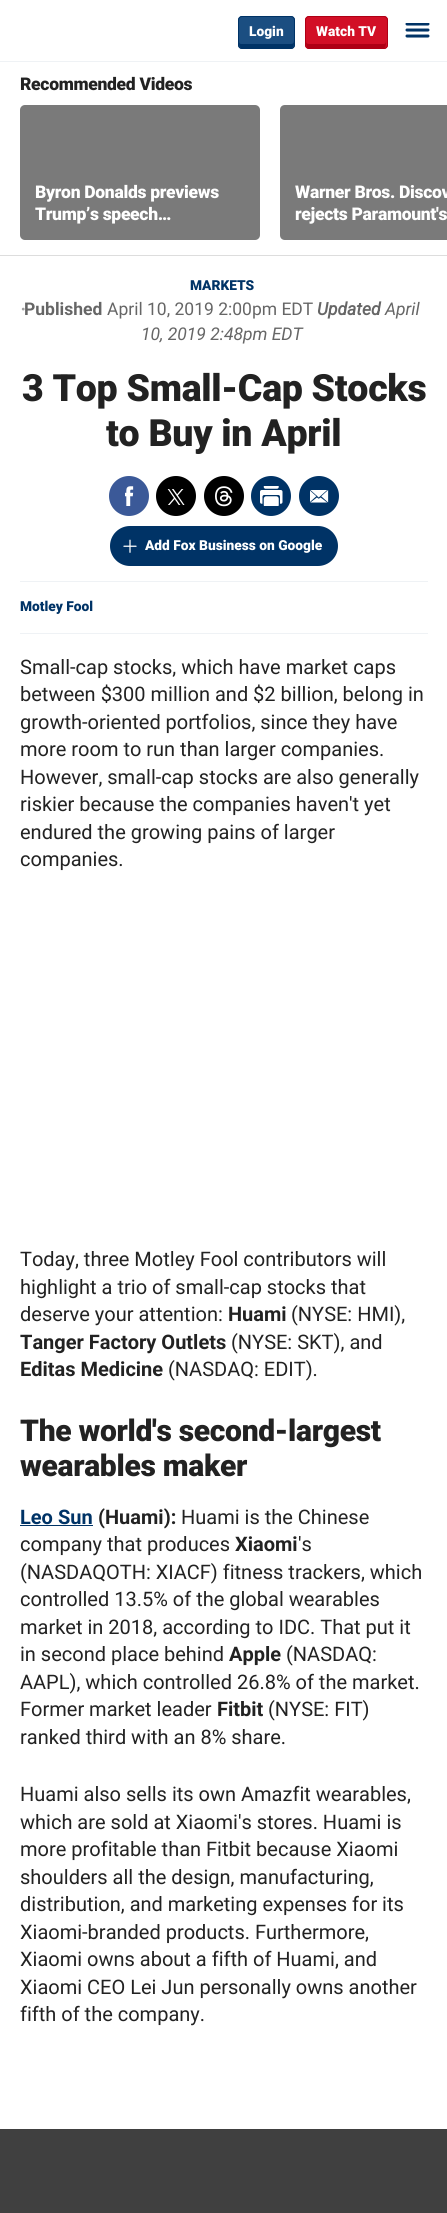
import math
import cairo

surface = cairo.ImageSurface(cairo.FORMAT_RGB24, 447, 2213)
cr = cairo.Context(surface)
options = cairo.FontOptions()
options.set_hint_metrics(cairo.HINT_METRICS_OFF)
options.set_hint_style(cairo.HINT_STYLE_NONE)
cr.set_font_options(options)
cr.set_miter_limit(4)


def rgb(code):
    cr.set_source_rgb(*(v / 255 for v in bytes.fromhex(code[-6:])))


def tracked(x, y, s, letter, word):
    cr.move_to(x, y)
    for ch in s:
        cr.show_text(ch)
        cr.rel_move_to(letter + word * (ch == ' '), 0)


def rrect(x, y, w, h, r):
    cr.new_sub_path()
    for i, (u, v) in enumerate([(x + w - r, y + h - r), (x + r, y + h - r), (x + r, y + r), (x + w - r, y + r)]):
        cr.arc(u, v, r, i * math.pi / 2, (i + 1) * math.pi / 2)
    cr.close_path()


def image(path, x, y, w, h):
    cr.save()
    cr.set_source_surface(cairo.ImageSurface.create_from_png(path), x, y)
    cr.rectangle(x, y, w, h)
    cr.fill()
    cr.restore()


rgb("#ffffff")
cr.paint()
rgb("#eff2f5")
cr.rectangle(0, 61, 447, 1)
cr.fill()
rgb("#1b4e81")
rrect(238, 16, 57, 33, 4)
cr.fill()
rgb("#003366")
cr.new_path()
cr.move_to(239, 41)
cr.curve_to(239, 50, 240, 48, 250, 48)
cr.line_to(283, 48)
cr.curve_to(293, 48, 294, 50, 294, 41)
cr.curve_to(294, 43, 293, 44, 291, 44)
cr.line_to(241, 44)
cr.curve_to(240, 44, 239, 43, 239, 41)
cr.close_path()
cr.fill()
rrect(238.5, 16.5, 56, 32, 3.5)
cr.set_line_width(1)
cr.stroke()
rgb("#d20f26")
rrect(305, 16, 83, 33, 4)
cr.fill()
rgb("#ae0015")
cr.new_path()
cr.move_to(306, 41)
cr.curve_to(306, 51, 308, 48, 321, 48)
cr.line_to(371, 48)
cr.curve_to(384, 48, 386, 51, 386, 41)
cr.curve_to(386, 43, 385, 44, 384, 44)
cr.line_to(309, 44)
cr.curve_to(307, 44, 306, 43, 306, 41)
cr.close_path()
cr.fill()
rrect(305.5, 16.5, 82, 32, 3.5)
cr.stroke()
image("img/1.png", 405, 23, 25, 15)
rgb("#dddddd")
cr.rectangle(0, 255, 447, 1)
cr.fill()
rgb("#f4f4f4")
rrect(20, 105, 240, 135, 5)
cr.fill()
cr.set_source_rgba(0, 0, 0, 0.5)
rrect(20, 105, 240, 135, 5)
cr.fill()
rgb("#f4f4f4")
cr.new_path()
cr.move_to(285, 105)
cr.line_to(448, 105)
cr.line_to(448, 240)
cr.line_to(285, 240)
cr.curve_to(282, 240, 280, 238, 280, 235)
cr.line_to(280, 110)
cr.curve_to(280, 107, 282, 105, 285, 105)
cr.close_path()
cr.fill()
cr.set_source_rgba(0, 0, 0, 0.5)
cr.new_path()
cr.move_to(285, 105)
cr.line_to(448, 105)
cr.line_to(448, 240)
cr.line_to(285, 240)
cr.curve_to(282, 240, 280, 238, 280, 235)
cr.line_to(280, 110)
cr.curve_to(280, 107, 282, 105, 285, 105)
cr.close_path()
cr.fill()
rgb("#eff2f5")
cr.rectangle(20, 633, 408, 1)
cr.fill()
rgb("#3b5998")
cr.arc(129, 496, 20, 0, 2 * math.pi)
cr.fill()
image("img/2.png", 125, 486, 9, 20)
rgb("#000000")
cr.arc(176, 496, 20, 0, 2 * math.pi)
cr.fill()
image("img/3.png", 167, 489, 18, 16)
cr.arc(224, 496, 20, 0, 2 * math.pi)
cr.fill()
image("img/4.png", 215, 486, 18, 21)
rgb("#003366")
cr.arc(271, 496, 20, 0, 2 * math.pi)
cr.fill()
image("img/5.png", 260, 486, 23, 20)
cr.arc(319, 496, 20, 0, 2 * math.pi)
cr.fill()
image("img/6.png", 310, 490, 19, 13)
rrect(110, 526, 228, 40, 20)
cr.fill()
image("img/7.png", 123, 539, 14, 14)
for x, y, w, h, color in [
    (20, 581, 408, 1, "#eff2f5"),
    (20, 1525, 73, 1, "#003366"),
    (0, 2129, 447, 84, "#404040"),
]:
    rgb(color)
    cr.rectangle(x, y, w, h)
    cr.fill()
cr.select_font_face("Roboto Black")
cr.set_font_size(13.75)
rgb("#ffffff")
cr.move_to(249, 36)
cr.show_text("Login")
cr.move_to(316, 36)
cr.show_text("Watch TV")
cr.set_font_size(17.5)
rgb("#222222")
tracked(20, 90, "Recommended Videos", -0.3, 0)
rgb("#ffffff")
for x, y, s in [
    (35, 198, "Byron Donalds previews"),
    (35, 220, "Trump’s speech…"),
    (295, 198, "Warner Bros. Discov"),
    (295, 220, "rejects Paramount's"),
]:
    tracked(x, y, s, -0.3, 0)
cr.set_font_size(13.75)
rgb("#003366")
cr.move_to(190, 290)
cr.show_text("MARKETS")
cr.select_font_face("Roboto")
cr.set_font_size(25)
rgb("#a0a0a0")
cr.move_to(20, 318)
cr.show_text("·")
cr.select_font_face("Roboto", cairo.FONT_SLANT_NORMAL, cairo.FONT_WEIGHT_BOLD)
cr.set_font_size(17.5)
rgb("#666666")
cr.move_to(24, 315)
cr.show_text("Published")
cr.select_font_face("Roboto")
cr.move_to(107, 315)
cr.show_text("April 10, 2019 2:00pm EDT")
cr.select_font_face("Roboto", cairo.FONT_SLANT_ITALIC, cairo.FONT_WEIGHT_BOLD)
cr.move_to(317, 315)
cr.show_text("Updated")
cr.select_font_face("Roboto", cairo.FONT_SLANT_ITALIC)
cr.move_to(385, 315)
cr.show_text("April")
cr.move_to(141, 340)
cr.show_text("10, 2019 2:48pm EDT")
cr.select_font_face("Roboto Black")
cr.set_font_size(37.5)
rgb("#222222")
tracked(22, 401, "3 Top Small-Cap Stocks", -0.3, 0)
tracked(106, 446, "to Buy in April", -0.3, 0)
cr.set_font_size(13.75)
rgb("#ffffff")
cr.move_to(145, 550)
cr.show_text("Add Fox Business on Google")
rgb("#003366")
cr.move_to(20, 611)
cr.show_text("Motley Fool")
cr.select_font_face("Roboto")
cr.set_font_size(20)
rgb("#222222")
for x, y, s in [
    (20, 674, "Small-cap stocks, which have market caps"),
    (20, 701, "between $300 million and $2 billion, belong in"),
    (20, 729, "growth-oriented portfolios, since they have"),
    (20, 756, "more room to run than larger companies."),
    (20, 784, "However, small-cap stocks are also generally"),
    (20, 811, "riskier because the companies haven't yet"),
    (20, 839, "endured the growing pains of larger"),
    (20, 866, "companies."),
    (20, 1266, "Today, three Motley Fool contributors will"),
    (20, 1294, "highlight a trio of small-cap stocks that"),
    (20, 1321, "deserve your attention:"),
]:
    cr.move_to(x, y)
    cr.show_text(s)
cr.select_font_face("Roboto", cairo.FONT_SLANT_NORMAL, cairo.FONT_WEIGHT_BOLD)
cr.move_to(228, 1321)
cr.show_text("Huami")
cr.select_font_face("Roboto")
cr.move_to(291, 1321)
cr.show_text("(NYSE: HMI),")
cr.select_font_face("Roboto", cairo.FONT_SLANT_NORMAL, cairo.FONT_WEIGHT_BOLD)
cr.move_to(20, 1349)
cr.show_text("Tanger Factory Outlets")
cr.select_font_face("Roboto")
cr.move_to(231, 1349)
cr.show_text("(NYSE: SKT), and")
cr.select_font_face("Roboto", cairo.FONT_SLANT_NORMAL, cairo.FONT_WEIGHT_BOLD)
cr.move_to(20, 1376)
cr.show_text("Editas Medicine")
cr.select_font_face("Roboto")
cr.move_to(168, 1376)
cr.show_text("(NASDAQ: EDIT).")
cr.select_font_face("Roboto Black")
cr.set_font_size(30)
tracked(20, 1441, "The world's second-largest", -0.3, 0)
tracked(20, 1476, "wearables maker", -0.3, 0)
cr.select_font_face("Roboto", cairo.FONT_SLANT_NORMAL, cairo.FONT_WEIGHT_BOLD)
cr.set_font_size(20)
rgb("#003366")
cr.move_to(20, 1524)
cr.show_text("Leo Sun")
rgb("#222222")
cr.move_to(98, 1524)
cr.show_text("(Huami):")
cr.select_font_face("Roboto")
cr.move_to(181, 1524)
cr.show_text("Huami is the Chinese")
cr.move_to(20, 1551)
cr.show_text("company that produces")
cr.select_font_face("Roboto", cairo.FONT_SLANT_NORMAL, cairo.FONT_WEIGHT_BOLD)
cr.move_to(235, 1551)
cr.show_text("Xiaomi")
cr.select_font_face("Roboto")
for x, y, s in [
    (298, 1551, "'s"),
    (20, 1579, "(NASDAQOTH: XIACF) fitness trackers, which"),
    (20, 1606, "controlled 13.5% of the global wearables"),
    (20, 1634, "market in 2018, according to IDC. That put it"),
    (20, 1661, "in second place behind"),
]:
    cr.move_to(x, y)
    cr.show_text(s)
cr.select_font_face("Roboto", cairo.FONT_SLANT_NORMAL, cairo.FONT_WEIGHT_BOLD)
cr.move_to(229, 1661)
cr.show_text("Apple")
cr.select_font_face("Roboto")
for x, y, s in [
    (286, 1661, "(NASDAQ:"),
    (20, 1689, "AAPL), which controlled 26.8% of the market."),
    (20, 1716, "Former market leader"),
]:
    cr.move_to(x, y)
    cr.show_text(s)
cr.select_font_face("Roboto", cairo.FONT_SLANT_NORMAL, cairo.FONT_WEIGHT_BOLD)
cr.move_to(217, 1716)
cr.show_text("Fitbit")
cr.select_font_face("Roboto")
for x, y, s in [
    (268, 1716, "(NYSE: FIT)"),
    (20, 1744, "ranked third with an 8% share."),
    (20, 1801, "Huami also sells its own Amazfit wearables,"),
    (20, 1829, "which are sold at Xiaomi's stores. Huami is"),
    (20, 1856, "more profitable than Fitbit because Xiaomi"),
    (20, 1884, "shoulders all the design, manufacturing,"),
    (20, 1911, "distribution, and marketing expenses for its"),
    (20, 1939, "Xiaomi-branded products. Furthermore,"),
    (20, 1966, "Xiaomi owns about a fifth of Huami, and"),
    (20, 1994, "Xiaomi CEO Lei Jun personally owns another"),
    (20, 2021, "fifth of the company."),
]:
    cr.move_to(x, y)
    cr.show_text(s)
surface.write_to_png("page.png")
